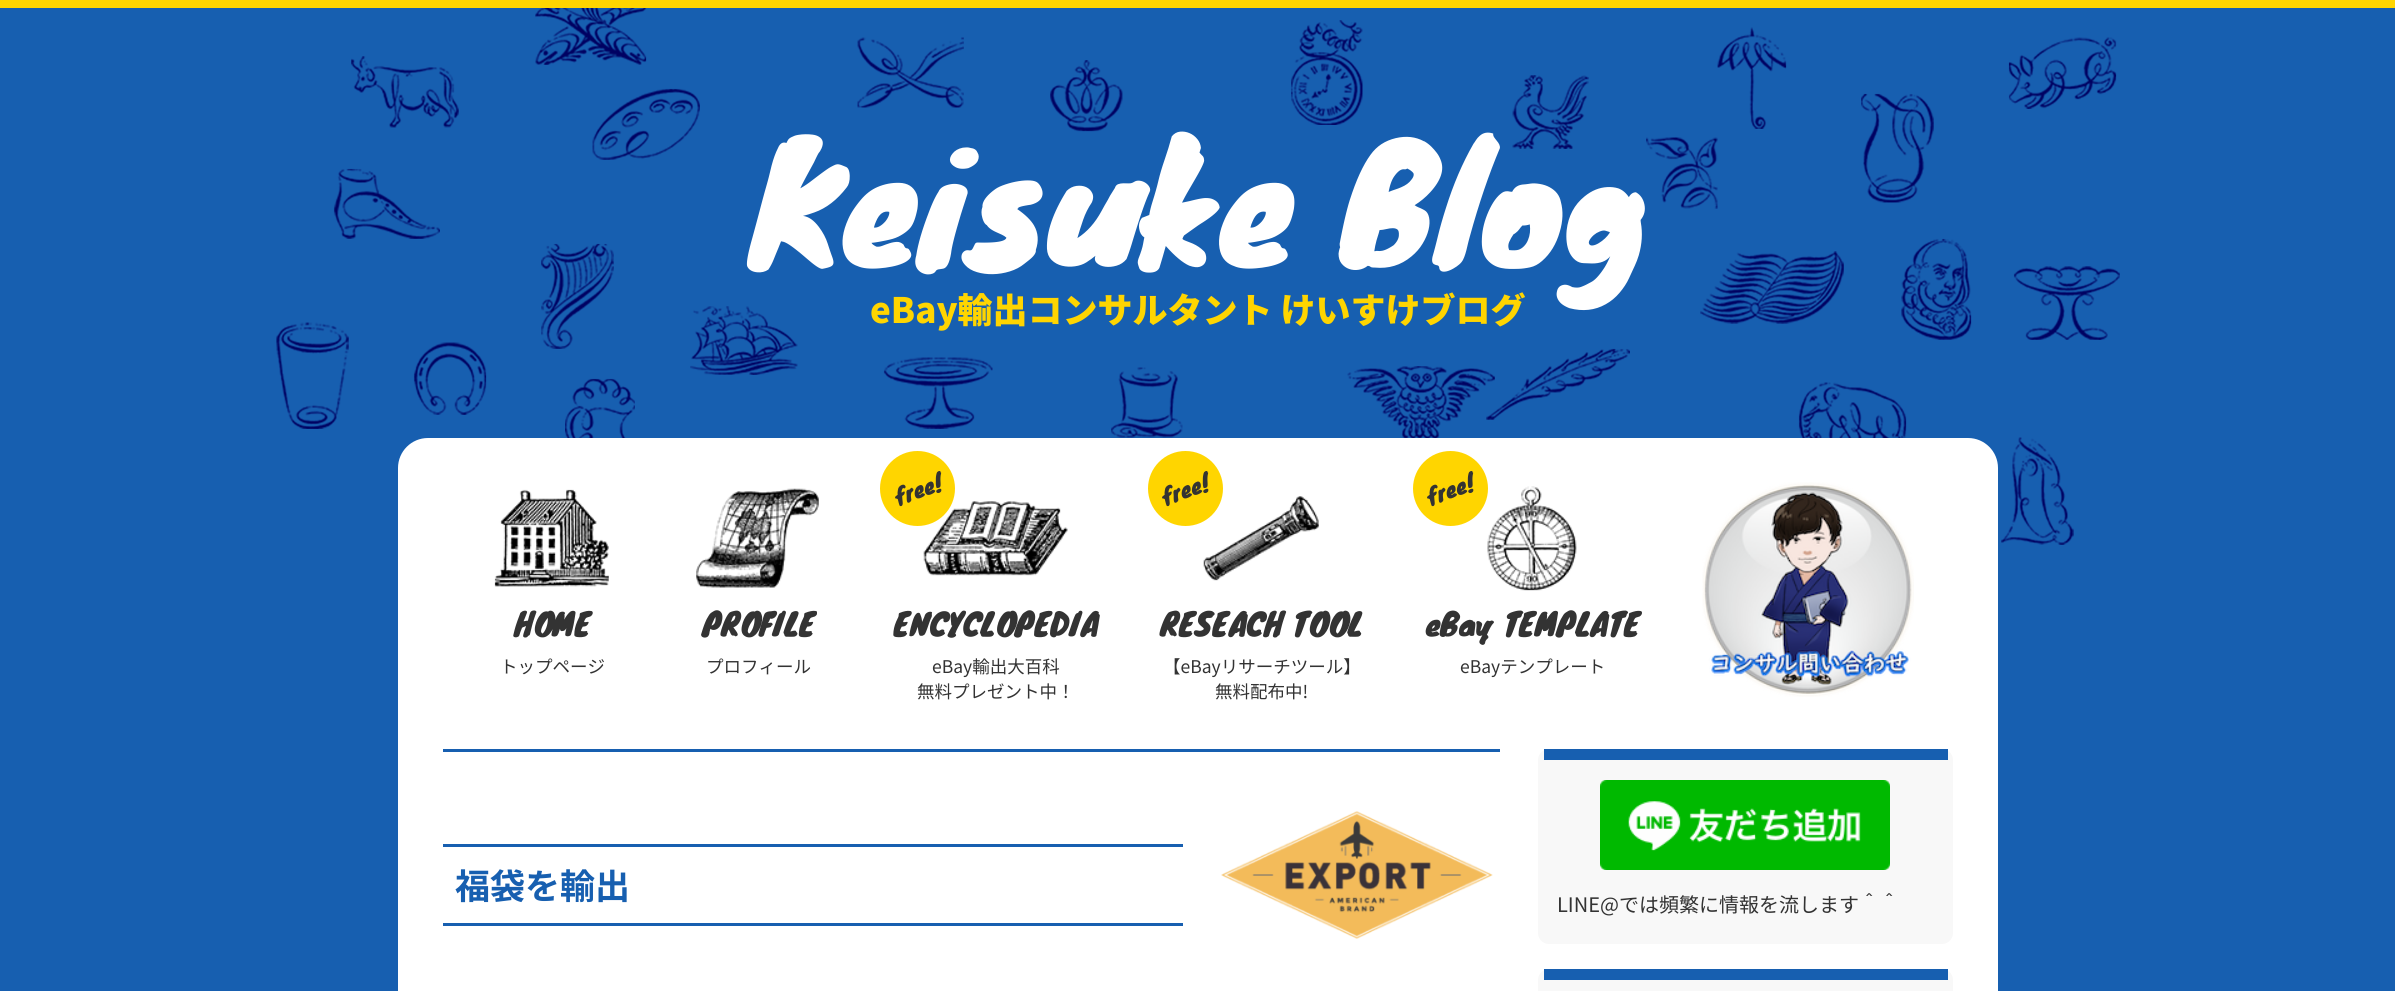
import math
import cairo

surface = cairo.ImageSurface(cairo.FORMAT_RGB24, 2395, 991)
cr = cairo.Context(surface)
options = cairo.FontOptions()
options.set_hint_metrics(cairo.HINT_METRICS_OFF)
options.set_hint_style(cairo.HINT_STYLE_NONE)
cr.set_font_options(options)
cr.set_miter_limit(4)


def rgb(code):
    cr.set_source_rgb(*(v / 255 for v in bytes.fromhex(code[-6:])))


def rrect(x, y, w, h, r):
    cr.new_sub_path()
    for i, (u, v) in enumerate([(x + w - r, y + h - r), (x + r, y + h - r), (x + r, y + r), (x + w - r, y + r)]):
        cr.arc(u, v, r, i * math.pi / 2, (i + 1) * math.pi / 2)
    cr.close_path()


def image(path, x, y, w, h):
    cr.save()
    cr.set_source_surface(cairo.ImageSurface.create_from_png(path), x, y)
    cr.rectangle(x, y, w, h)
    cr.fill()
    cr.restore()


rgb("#175fb0")
cr.paint()
image("img/1.png", 276, 8, 1844, 537)
rgb("#ffd500")
cr.rectangle(0, 0, 2395, 8)
cr.fill()
rgb("#ffffff")
rrect(398, 438, 1600, 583, 30)
cr.fill()
image("img/2.png", 494, 489, 115, 98)
image("img/3.png", 696, 488, 123, 100)
image("img/4.png", 923, 501, 145, 75)
rgb("#ffd500")
cr.arc(917.5, 488.5, 37.5, 0, 2 * math.pi)
cr.fill()
image("img/5.png", 1203, 496, 116, 85)
cr.arc(1185.5, 488.5, 37.5, 0, 2 * math.pi)
cr.fill()
image("img/6.png", 1487, 486, 90, 105)
cr.arc(1450.5, 488.5, 37.5, 0, 2 * math.pi)
cr.fill()
image("img/7.png", 1702, 482, 212, 215)
for x, y, w, h, color in [
    (443, 749, 1057, 3, "#175fb0"),
    (443, 844, 740, 3, "#175fb0"),
    (443, 923, 740, 3, "#175fb0"),
]:
    rgb(color)
    cr.rectangle(x, y, w, h)
    cr.fill()
image("img/8.png", 1221, 811, 272, 128)
rgb("#f8f8f8")
rrect(1538, 749, 415, 195, 11)
cr.fill()
rgb("#175fb0")
cr.rectangle(1544, 749, 404, 11)
cr.fill()
image("img/9.png", 1600, 780, 290, 90)
rgb("#f8f8f8")
rrect(1538, 969, 415, 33, 11)
cr.fill()
rgb("#175fb0")
cr.rectangle(1544, 969, 404, 11)
cr.fill()
cr.select_font_face("Knewave")
cr.set_font_size(157.5)
rgb("#ffffff")
cr.move_to(748, 260)
cr.show_text("Keisuke Blog")
cr.select_font_face("Noto Sans JP Black")
cr.set_font_size(35)
rgb("#ffd500")
cr.move_to(870, 323)
cr.show_text("eBay輸出コンサルタント けいすけブログ")
cr.select_font_face("Knewave")
cr.set_font_size(31.25)
rgb("#333333")
cr.move_to(514, 635)
cr.show_text("HOME")
cr.select_font_face("Noto Sans JP")
cr.set_font_size(17.5)
cr.move_to(500, 673)
cr.show_text("トップページ")
cr.select_font_face("Knewave")
cr.set_font_size(31.25)
cr.move_to(702, 635)
cr.show_text("PROFILE")
cr.select_font_face("Noto Sans JP")
cr.set_font_size(17.5)
cr.move_to(706, 673)
cr.show_text("プロフィール")
cr.select_font_face("Knewave")
cr.set_font_size(22.5)
cr.save()
cr.translate(898, 505)
cr.rotate(-20 * math.pi / 180)
cr.move_to(0, 0)
cr.show_text("free!")
cr.restore()
cr.set_font_size(31.25)
cr.move_to(893, 635)
cr.show_text("ENCYCLOPEDIA")
cr.select_font_face("Noto Sans JP")
cr.set_font_size(17.5)
cr.move_to(932, 673)
cr.show_text("eBay輸出大百科")
cr.move_to(917, 698)
cr.show_text("無料プレゼント中！")
cr.select_font_face("Knewave")
cr.set_font_size(22.5)
cr.save()
cr.translate(1165, 505)
cr.rotate(-20 * math.pi / 180)
cr.move_to(0, 0)
cr.show_text("free!")
cr.restore()
cr.set_font_size(31.25)
cr.move_to(1160, 635)
cr.show_text("RESEACH TOOL")
cr.select_font_face("Noto Sans JP")
cr.set_font_size(17.5)
cr.move_to(1163, 673)
cr.show_text("【eBayリサーチツール】")
cr.move_to(1215, 698)
cr.show_text("無料配布中!")
cr.select_font_face("Knewave")
cr.set_font_size(22.5)
cr.save()
cr.translate(1430, 505)
cr.rotate(-20 * math.pi / 180)
cr.move_to(0, 0)
cr.show_text("free!")
cr.restore()
cr.set_font_size(31.25)
cr.move_to(1425, 635)
cr.show_text("eBay TEMPLATE")
cr.select_font_face("Noto Sans JP")
cr.set_font_size(17.5)
cr.move_to(1460, 673)
cr.show_text("eBayテンプレート")
cr.select_font_face("Noto Sans JP", cairo.FONT_SLANT_NORMAL, cairo.FONT_WEIGHT_BOLD)
cr.set_font_size(35)
rgb("#175fb0")
cr.move_to(455, 899)
cr.show_text("福袋を輸出")
cr.select_font_face("Noto Sans JP")
cr.set_font_size(20)
rgb("#333333")
cr.move_to(1557, 912)
cr.show_text("LINE@では頻繁に情報を流します＾＾")
surface.write_to_png("page.png")
